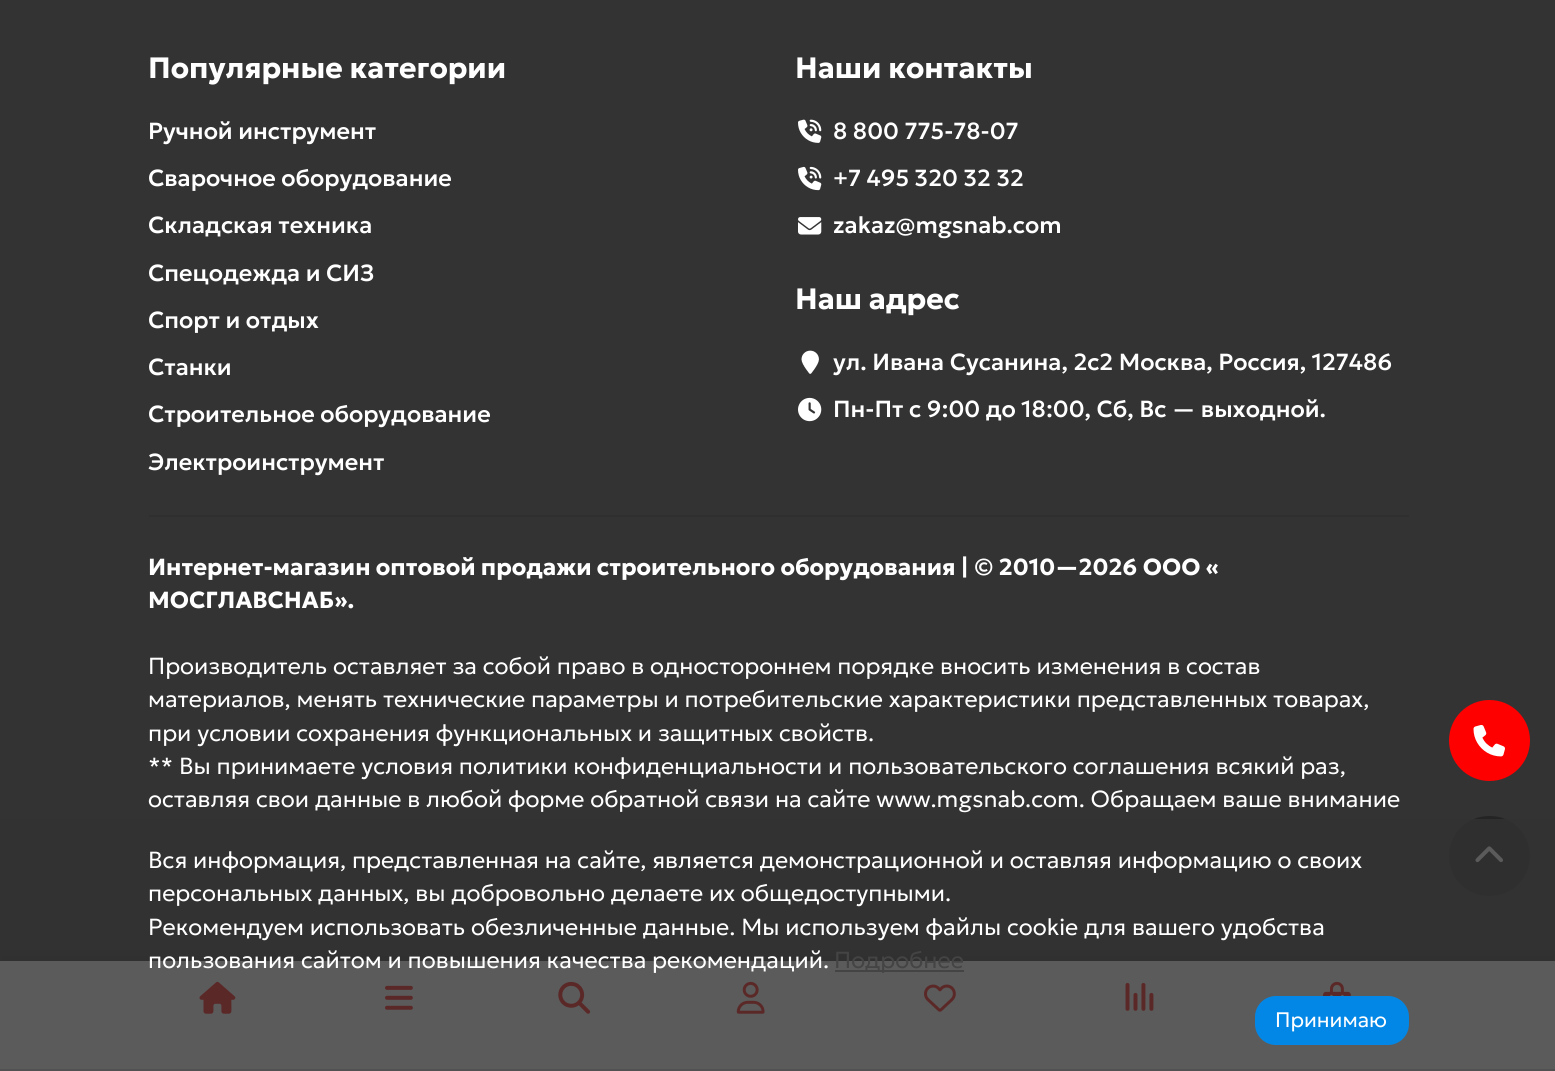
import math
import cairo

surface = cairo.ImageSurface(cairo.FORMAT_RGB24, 1555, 1071)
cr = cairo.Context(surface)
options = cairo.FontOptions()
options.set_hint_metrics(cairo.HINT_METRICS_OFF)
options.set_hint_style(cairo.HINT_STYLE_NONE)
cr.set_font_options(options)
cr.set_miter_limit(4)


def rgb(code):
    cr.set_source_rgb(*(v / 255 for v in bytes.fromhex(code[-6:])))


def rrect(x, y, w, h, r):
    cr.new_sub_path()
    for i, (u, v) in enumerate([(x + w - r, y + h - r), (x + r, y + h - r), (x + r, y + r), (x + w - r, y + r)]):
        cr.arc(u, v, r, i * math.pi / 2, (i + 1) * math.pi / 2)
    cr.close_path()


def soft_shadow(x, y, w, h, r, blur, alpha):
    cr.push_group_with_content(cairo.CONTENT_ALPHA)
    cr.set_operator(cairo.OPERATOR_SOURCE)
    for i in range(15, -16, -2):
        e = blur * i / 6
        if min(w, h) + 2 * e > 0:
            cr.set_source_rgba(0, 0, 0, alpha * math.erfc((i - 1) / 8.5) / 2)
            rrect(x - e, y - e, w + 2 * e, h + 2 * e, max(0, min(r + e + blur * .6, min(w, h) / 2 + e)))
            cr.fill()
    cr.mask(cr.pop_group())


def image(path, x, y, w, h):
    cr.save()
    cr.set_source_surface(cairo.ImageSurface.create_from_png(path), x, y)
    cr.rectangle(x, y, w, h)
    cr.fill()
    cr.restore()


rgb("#333333")
cr.paint()
image("img/1.png", 798, 119, 24, 24)
image("img/2.png", 798, 166, 24, 25)
image("img/3.png", 798, 217, 24, 18)
image("img/4.png", 801, 350, 18, 24)
image("img/5.png", 798, 397, 24, 25)
rgb("#2f2f2f")
cr.rectangle(149, 515, 1260, 2)
cr.fill()
rgb("#303030")
cr.rectangle(0, 952, 1555, 9)
cr.fill()
rgb("#ff0000")
cr.arc(1489.5, 740.5, 40.5, 0, 2 * math.pi)
cr.fill()
image("img/6.png", 1473, 724, 32, 33)
rgb("#242424")
rrect(1449, 816, 81, 80, 40)
cr.fill()
image("img/7.png", 1475, 846, 28, 17)
rgb("#000000")
soft_shadow(0, 954, 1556, 110, 0, 9, 0.2)
rgb("#fefefe")
cr.rectangle(0, 961, 1555, 108)
cr.fill()
rgb("#cccccc")
cr.rectangle(0, 1069, 1555, 2)
cr.fill()
image("img/8.png", 199, 981, 37, 33)
image("img/9.png", 385, 985, 28, 25)
image("img/10.png", 558, 981, 33, 33)
image("img/11.png", 736, 981, 29, 33)
image("img/12.png", 924, 984, 32, 28)
image("img/13.png", 1125, 983, 29, 28)
image("img/14.png", 1323, 981, 28, 15)
cr.set_source_rgba(0.2, 0.2, 0.2, 0.8)
cr.rectangle(0, 819, 1555, 252)
cr.fill()
rgb("#444444")
cr.rectangle(835, 970, 129, 2)
cr.fill()
rgb("#0387e6")
rrect(1255, 996, 154, 49, 21)
cr.fill()
cr.select_font_face("Geologica", cairo.FONT_SLANT_NORMAL, cairo.FONT_WEIGHT_BOLD)
cr.set_font_size(29.4)
rgb("#ffffff")
cr.move_to(148, 78)
cr.show_text("Популярные категории")
cr.select_font_face("Geologica Medium")
cr.set_font_size(23.28)
for x, y, s in [
    (148, 139, "Ручной инструмент"),
    (148, 186, "Сварочное оборудование"),
    (148, 233, "Складская техника"),
    (148, 281, "Спецодежда и СИЗ"),
    (148, 328, "Спорт и отдых"),
    (148, 375, "Станки"),
    (148, 422, "Строительное оборудование"),
    (148, 470, "Электроинструмент"),
]:
    cr.move_to(x, y)
    cr.show_text(s)
cr.select_font_face("Geologica", cairo.FONT_SLANT_NORMAL, cairo.FONT_WEIGHT_BOLD)
cr.set_font_size(29.4)
cr.move_to(795, 78)
cr.show_text("Наши контакты")
cr.select_font_face("Geologica Medium")
cr.set_font_size(23.28)
for x, y, s in [
    (833, 139, "8 800 775-78-07"),
    (833, 186, "+7 495 320 32 32"),
    (833, 233, "zakaz@mgsnab.com"),
]:
    cr.move_to(x, y)
    cr.show_text(s)
cr.select_font_face("Geologica", cairo.FONT_SLANT_NORMAL, cairo.FONT_WEIGHT_BOLD)
cr.set_font_size(29.4)
cr.move_to(795, 309)
cr.show_text("Наш адрес")
cr.select_font_face("Geologica Medium")
cr.set_font_size(23.28)
cr.move_to(833, 370)
cr.show_text("ул. Ивана Сусанина, 2с2 Москва, Россия, 127486")
cr.move_to(833, 417)
cr.show_text("Пн-Пт с 9:00 до 18:00, Сб, Вс — выходной.")
cr.select_font_face("Geologica", cairo.FONT_SLANT_NORMAL, cairo.FONT_WEIGHT_BOLD)
cr.move_to(148, 575)
cr.show_text("Интернет-магазин оптовой продажи строительного оборудования | © 2010—2026 ООО «")
cr.move_to(148, 608)
cr.show_text("МОСГЛАВСНАБ».")
cr.select_font_face("Geologica Light")
for x, y, s in [
    (148, 674, "Производитель оставляет за собой право в одностороннем порядке вносить изменения в состав"),
    (148, 707, "материалов, менять технические параметры и потребительские характеристики представленных товарах,"),
    (148, 741, "при условии сохранения функциональных и защитных свойств."),
    (148, 774, "** Вы принимаете условия политики конфиденциальности и пользовательского соглашения всякий раз,"),
    (148, 807, "оставляя свои данные в любой форме обратной связи на сайте www.mgsnab.com. Обращаем ваше внимание"),
    (148, 868, "Вся информация, представленная на сайте, является демонстрационной и оставляя информацию о своих"),
    (148, 901, "персональных данных, вы добровольно делаете их общедоступными."),
    (148, 935, "Рекомендуем использовать обезличенные данные. Мы используем файлы cookie для вашего удобства"),
    (148, 968, "пользования сайтом и повышения качества рекомендаций."),
]:
    cr.move_to(x, y)
    cr.show_text(s)
rgb("#444444")
cr.move_to(834, 968)
cr.show_text("Подробнее")
cr.set_font_size(21)
rgb("#ffffff")
cr.move_to(1275, 1027)
cr.show_text("Принимаю")
surface.write_to_png("page.png")
